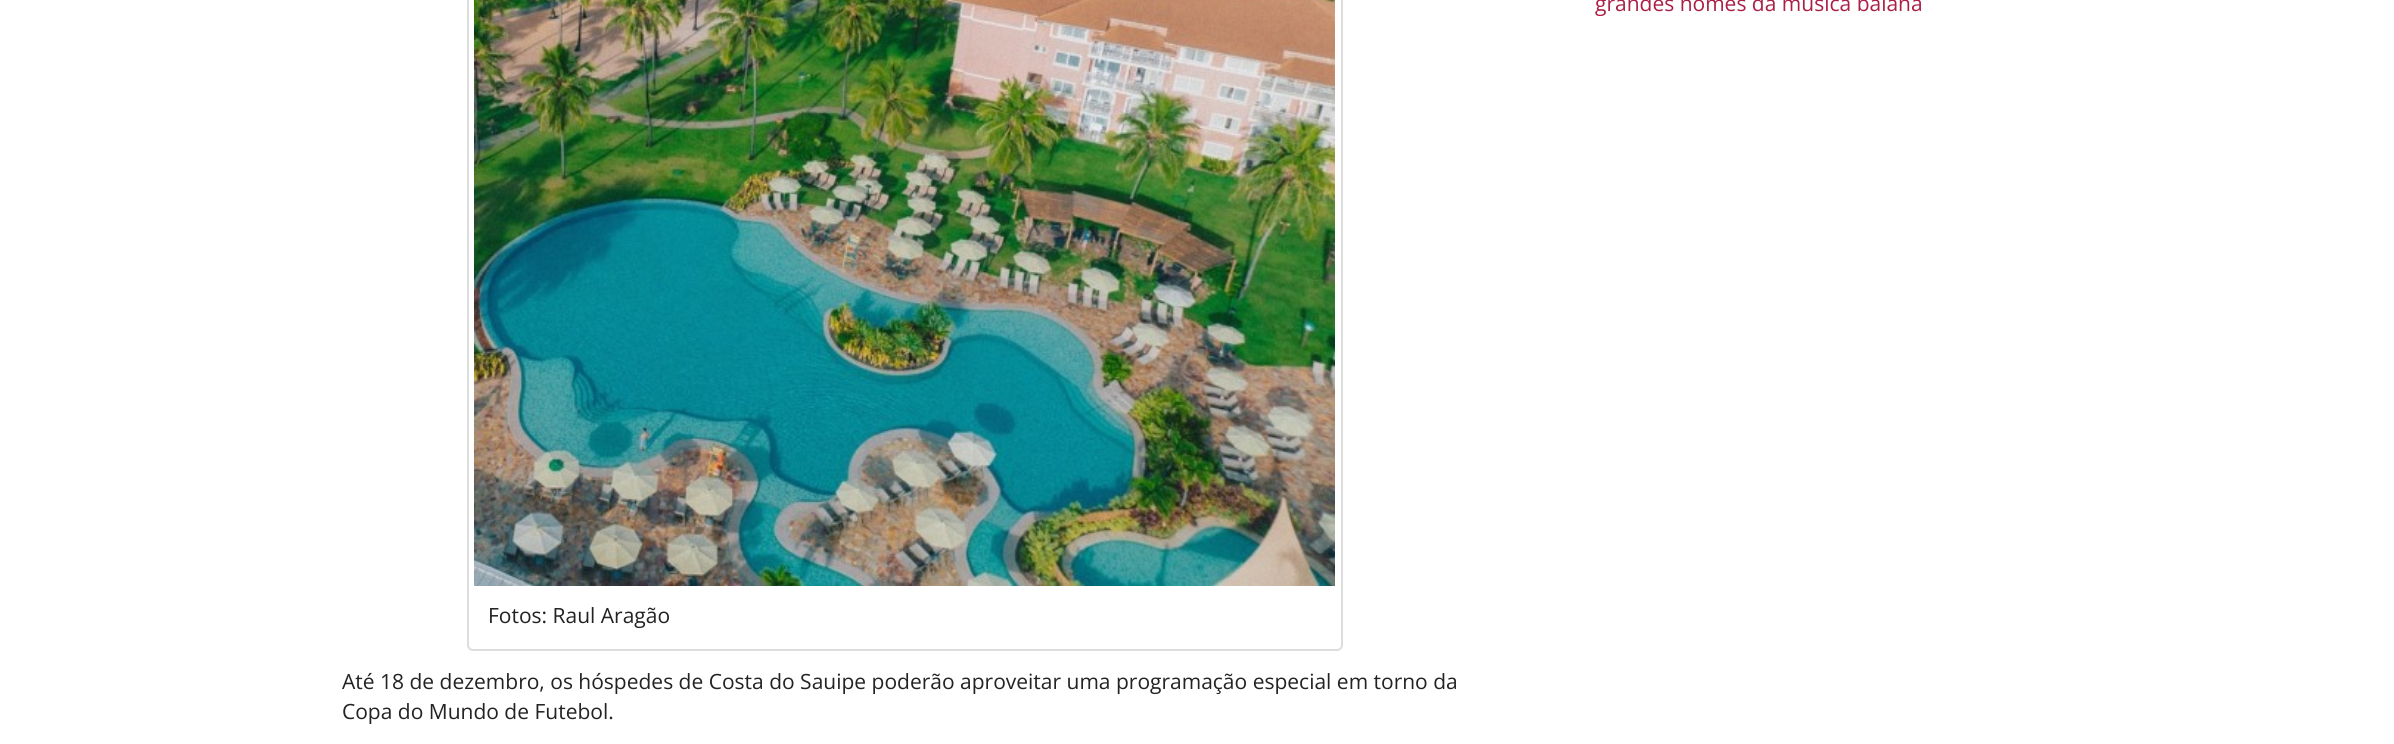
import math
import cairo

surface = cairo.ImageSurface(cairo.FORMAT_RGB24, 2394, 744)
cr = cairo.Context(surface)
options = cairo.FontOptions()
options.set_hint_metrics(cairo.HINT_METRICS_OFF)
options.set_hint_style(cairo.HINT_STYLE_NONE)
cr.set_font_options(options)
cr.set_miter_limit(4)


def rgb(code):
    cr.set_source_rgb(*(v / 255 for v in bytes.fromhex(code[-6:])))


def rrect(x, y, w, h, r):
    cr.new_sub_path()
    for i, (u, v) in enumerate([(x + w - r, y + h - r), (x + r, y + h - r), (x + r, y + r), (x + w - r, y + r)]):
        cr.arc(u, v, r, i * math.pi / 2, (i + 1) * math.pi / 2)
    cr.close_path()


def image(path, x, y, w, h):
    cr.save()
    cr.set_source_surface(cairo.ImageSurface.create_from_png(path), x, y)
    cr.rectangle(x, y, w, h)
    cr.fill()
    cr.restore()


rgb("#ffffff")
cr.paint()
rrect(468, -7, 874, 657, 5)
rgb("#dddddd")
cr.stroke()
image("img/1.png", 474, 0, 861, 586)
cr.select_font_face("Open Sans")
cr.set_font_size(21)
rgb("#ab1f47")
cr.move_to(1595, 11)
cr.show_text("grandes nomes da música baiana")
rgb("#232323")
for x, y, s in [
    (488, 623, "Fotos: Raul Aragão"),
    (342, 689, "Até 18 de dezembro, os hóspedes de Costa do Sauipe poderão aproveitar uma programação especial em torno da"),
    (342, 719, "Copa do Mundo de Futebol."),
]:
    cr.move_to(x, y)
    cr.show_text(s)
surface.write_to_png("page.png")
